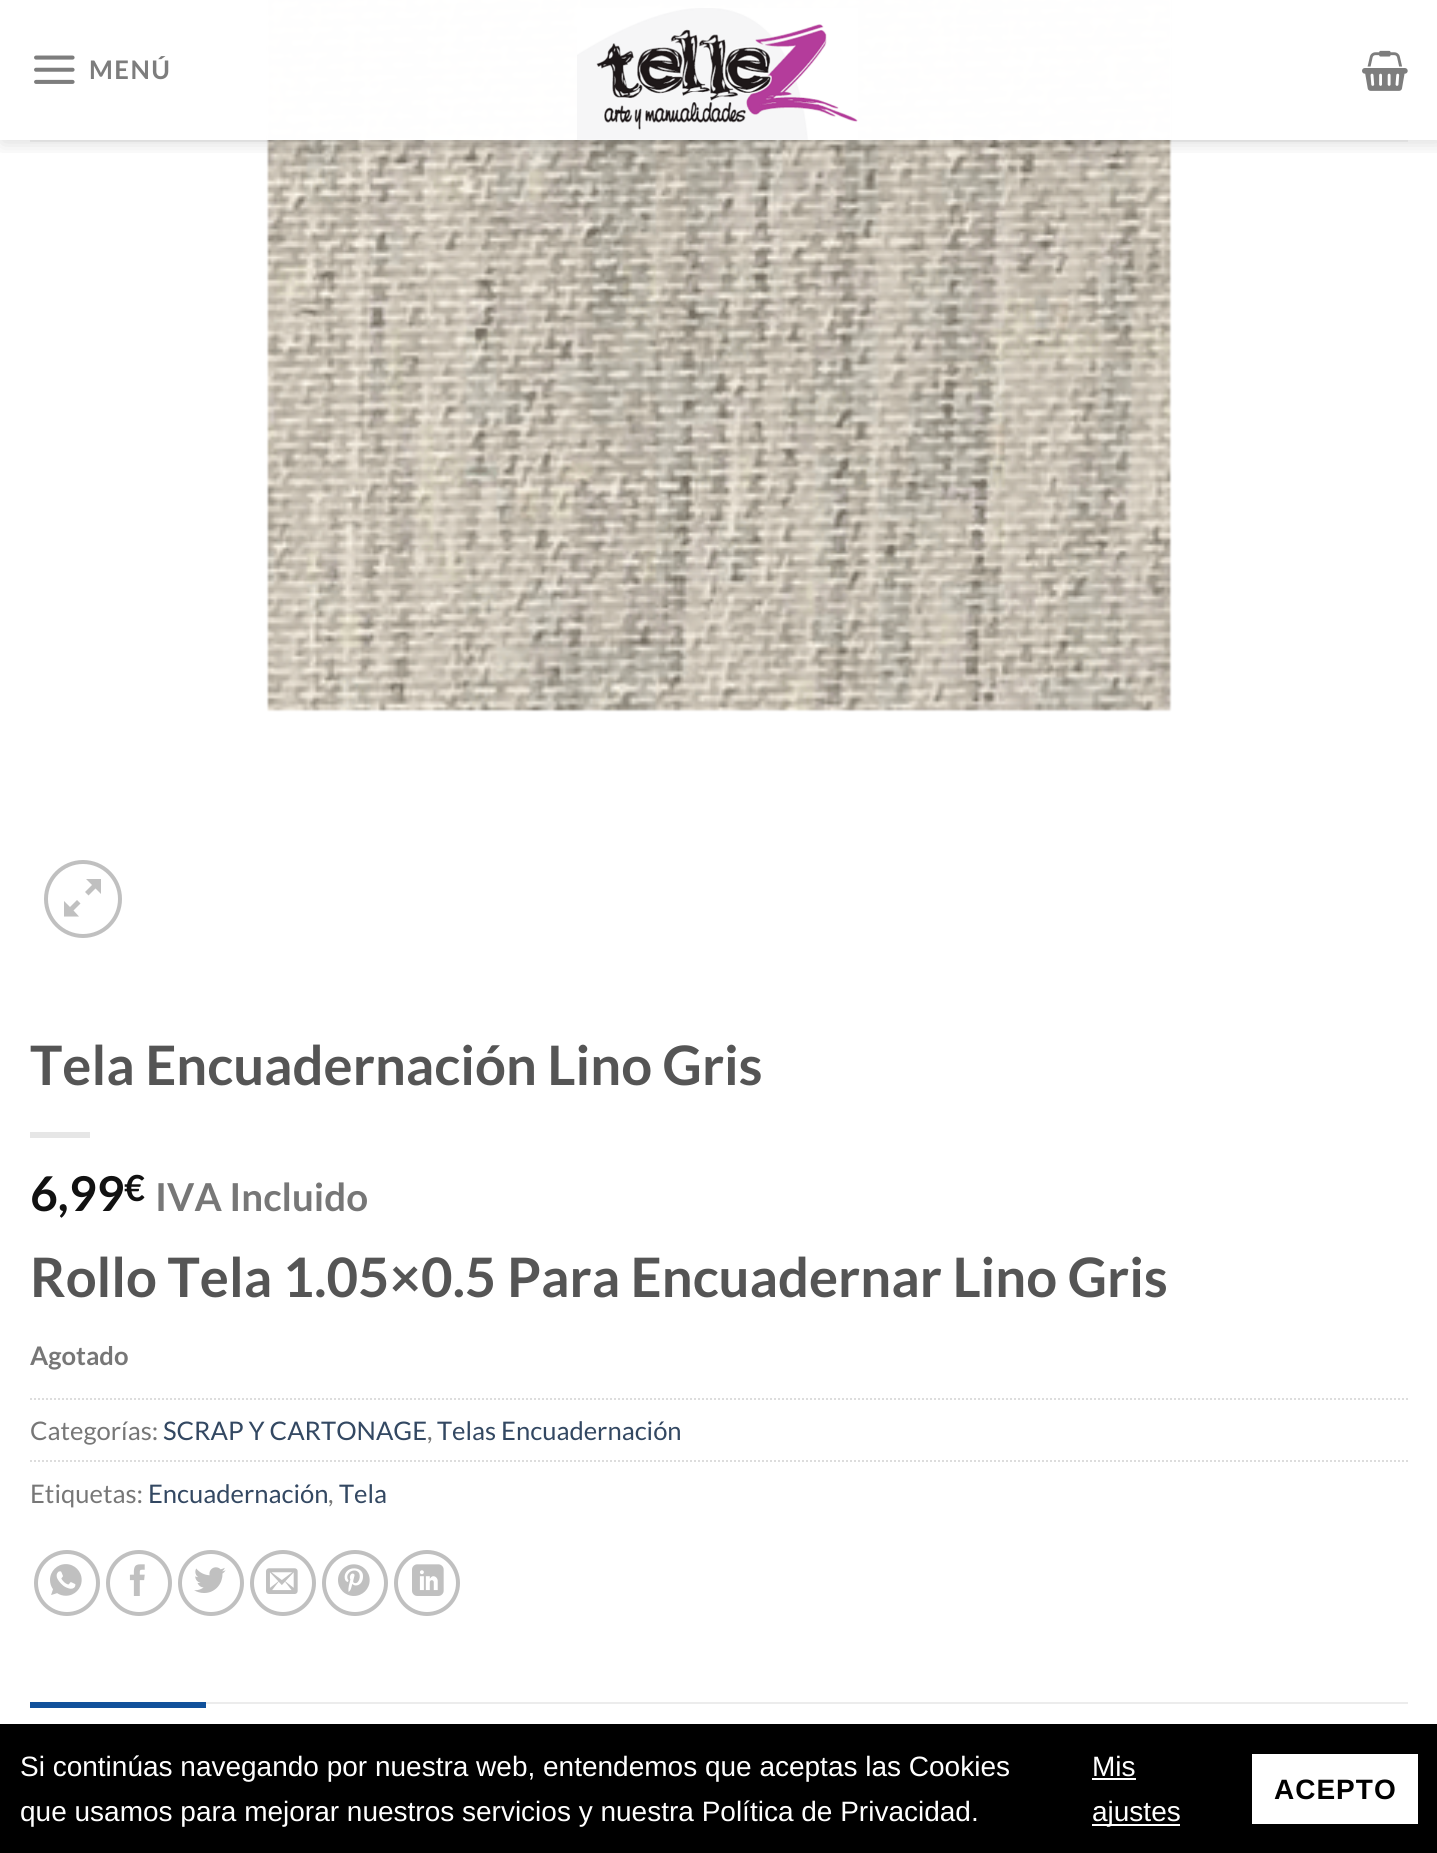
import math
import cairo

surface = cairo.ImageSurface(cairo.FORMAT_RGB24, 1437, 1853)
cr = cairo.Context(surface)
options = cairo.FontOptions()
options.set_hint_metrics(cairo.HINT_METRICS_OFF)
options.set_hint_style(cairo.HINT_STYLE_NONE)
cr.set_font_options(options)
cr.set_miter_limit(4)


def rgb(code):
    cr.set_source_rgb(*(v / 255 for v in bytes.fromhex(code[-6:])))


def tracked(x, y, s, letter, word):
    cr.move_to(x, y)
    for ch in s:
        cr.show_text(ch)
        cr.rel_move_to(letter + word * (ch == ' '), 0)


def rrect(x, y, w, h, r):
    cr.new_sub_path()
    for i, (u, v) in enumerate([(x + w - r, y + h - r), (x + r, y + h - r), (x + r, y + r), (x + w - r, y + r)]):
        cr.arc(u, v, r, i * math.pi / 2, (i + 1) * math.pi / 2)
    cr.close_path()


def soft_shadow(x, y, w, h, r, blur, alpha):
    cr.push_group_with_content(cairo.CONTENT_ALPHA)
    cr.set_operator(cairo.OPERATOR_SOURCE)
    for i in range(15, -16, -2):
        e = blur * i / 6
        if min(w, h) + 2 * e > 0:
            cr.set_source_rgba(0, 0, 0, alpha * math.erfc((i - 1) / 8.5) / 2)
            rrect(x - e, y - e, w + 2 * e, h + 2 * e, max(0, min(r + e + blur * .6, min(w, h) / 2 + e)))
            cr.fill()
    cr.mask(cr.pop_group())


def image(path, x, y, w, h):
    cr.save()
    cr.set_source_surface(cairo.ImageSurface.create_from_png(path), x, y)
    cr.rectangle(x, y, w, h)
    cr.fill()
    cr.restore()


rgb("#ffffff")
cr.paint()
image("img/4.png", 266, 0, 906, 712)
cr.save()
cr.rectangle(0, 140, 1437, 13)
cr.clip()
rgb("#000000")
soft_shadow(2, 2, 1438, 140, 0, 10, 0.15)
cr.restore()
cr.set_source_rgba(1, 1, 1, 0.9)
cr.rectangle(266, 0, 906, 140)
cr.fill()
image("img/1.png", 34, 55, 41, 29)
cr.rectangle(267, 0, 904, 140)
cr.fill()
image("img/2.png", 577, 8, 281, 132)
image("img/3.png", 1362, 50, 46, 41)
cr.set_source_rgba(0.467, 0.467, 0.467, 0.1)
cr.rectangle(30, 140, 1378, 2)
cr.fill()
cr.arc(83, 899, 37, 0, 2 * math.pi)
rgb("#c0c0c0")
cr.set_line_width(4)
cr.stroke()
cr.new_path()
cr.move_to(101, 879)
cr.line_to(101, 894)
cr.line_to(95.5, 888.5)
cr.line_to(88.5, 895.5)
cr.line_to(85, 892)
cr.line_to(92, 885)
cr.line_to(86, 879)
cr.close_path()
cr.move_to(80.5, 903.5)
cr.line_to(73.5, 910.5)
cr.line_to(79, 916.5)
cr.line_to(64, 916.5)
cr.line_to(64, 901)
cr.line_to(70, 907)
cr.line_to(77, 900)
cr.close_path()
cr.fill()
rgb("#e6e6e6")
cr.rectangle(30, 1132, 60, 6)
cr.fill()
cr.new_path()
cr.move_to(30, 1399)
cr.line_to(1408, 1399)
rgb("#dddddd")
cr.set_line_width(2)
cr.set_dash([2, 2])
cr.stroke()
cr.new_path()
cr.move_to(30, 1461)
cr.line_to(1408, 1461)
cr.stroke()
cr.arc(67, 1583, 31, 0, 2 * math.pi)
rgb("#c0c0c0")
cr.set_line_width(4)
cr.set_dash([])
cr.stroke()
image("img/5.png", 50, 1564, 32, 32)
cr.arc(139, 1583, 31, 0, 2 * math.pi)
cr.stroke()
image("img/6.png", 129, 1564, 16, 32)
cr.arc(211, 1583, 31, 0, 2 * math.pi)
cr.stroke()
image("img/7.png", 194, 1567, 32, 26)
cr.arc(283, 1583, 31, 0, 2 * math.pi)
cr.stroke()
image("img/8.png", 266, 1568, 32, 26)
cr.arc(355, 1583, 31, 0, 2 * math.pi)
cr.stroke()
image("img/9.png", 338, 1564, 32, 32)
cr.arc(427, 1583, 31, 0, 2 * math.pi)
cr.stroke()
image("img/10.png", 412, 1564, 32, 32)
for x, y, w, h, color in [
    (206, 1702, 1202, 2, "#ececec"),
    (30, 1702, 176, 6, "#11519b"),
    (0, 1724, 1437, 129, "#000000"),
    (1092, 1778, 44, 2, "#ffffff"),
    (1092, 1824, 88, 2, "#ffffff"),
    (1252, 1754, 166, 70, "#ffffff"),
]:
    rgb(color)
    cr.rectangle(x, y, w, h)
    cr.fill()
cr.select_font_face("Lato", cairo.FONT_SLANT_NORMAL, cairo.FONT_WEIGHT_BOLD)
cr.set_font_size(25.6)
rgb("#7d7d7d")
tracked(89, 79, "MENÚ", 1.5, 0)
cr.set_font_size(54.4)
rgb("#555555")
cr.move_to(30, 1085)
cr.show_text("Tela Encuadernación Lino Gris")
cr.set_font_size(48)
rgb("#111111")
cr.move_to(30, 1211)
cr.show_text("6,99")
cr.set_font_size(36)
cr.move_to(124, 1201)
cr.show_text("€")
cr.set_font_size(38.5)
rgb("#777777")
cr.move_to(155, 1211)
cr.show_text("IVA Incluido")
cr.set_font_size(54.4)
rgb("#555555")
cr.move_to(30, 1297)
cr.show_text("Rollo Tela 1.05×0.5 Para Encuadernar Lino Gris")
cr.set_font_size(25.6)
rgb("#777777")
cr.move_to(30, 1365)
cr.show_text("Agotado")
cr.select_font_face("Lato")
cr.move_to(30, 1440)
cr.show_text("Categorías:")
rgb("#334862")
cr.move_to(163, 1440)
cr.show_text("SCRAP Y CARTONAGE")
rgb("#777777")
cr.move_to(427, 1440)
cr.show_text(",")
rgb("#334862")
cr.move_to(437, 1440)
cr.show_text("Telas Encuadernación")
rgb("#777777")
cr.move_to(30, 1503)
cr.show_text("Etiquetas:")
rgb("#334862")
cr.move_to(148, 1503)
cr.show_text("Encuadernación")
rgb("#777777")
cr.move_to(328, 1503)
cr.show_text(",")
rgb("#334862")
cr.move_to(339, 1503)
cr.show_text("Tela")
cr.select_font_face("Liberation Sans")
cr.set_font_size(28)
rgb("#ffffff")
for x, y, s in [
    (20, 1776, "Si continúas navegando por nuestra web, entendemos que aceptas las Cookies"),
    (20, 1821, "que usamos para mejorar nuestros servicios y nuestra Política de Privacidad."),
    (1092, 1776, "Mis"),
    (1092, 1821, "ajustes"),
]:
    cr.move_to(x, y)
    cr.show_text(s)
cr.select_font_face("Liberation Sans", cairo.FONT_SLANT_NORMAL, cairo.FONT_WEIGHT_BOLD)
rgb("#000000")
tracked(1274, 1799, "ACEPTO", 1, 0)
surface.write_to_png("page.png")
